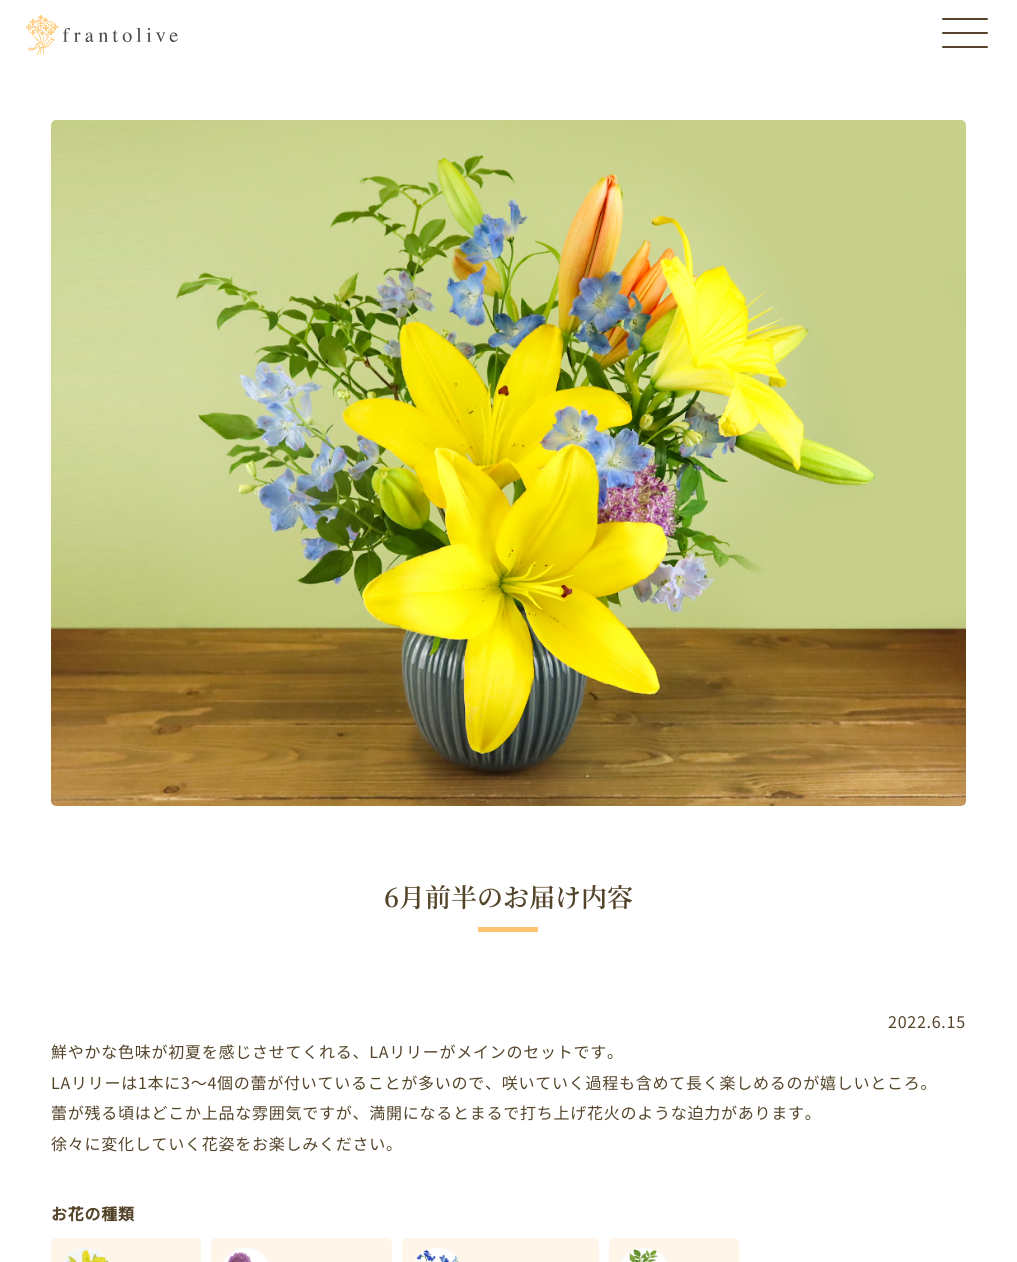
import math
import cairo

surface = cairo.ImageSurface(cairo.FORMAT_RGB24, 1017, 1262)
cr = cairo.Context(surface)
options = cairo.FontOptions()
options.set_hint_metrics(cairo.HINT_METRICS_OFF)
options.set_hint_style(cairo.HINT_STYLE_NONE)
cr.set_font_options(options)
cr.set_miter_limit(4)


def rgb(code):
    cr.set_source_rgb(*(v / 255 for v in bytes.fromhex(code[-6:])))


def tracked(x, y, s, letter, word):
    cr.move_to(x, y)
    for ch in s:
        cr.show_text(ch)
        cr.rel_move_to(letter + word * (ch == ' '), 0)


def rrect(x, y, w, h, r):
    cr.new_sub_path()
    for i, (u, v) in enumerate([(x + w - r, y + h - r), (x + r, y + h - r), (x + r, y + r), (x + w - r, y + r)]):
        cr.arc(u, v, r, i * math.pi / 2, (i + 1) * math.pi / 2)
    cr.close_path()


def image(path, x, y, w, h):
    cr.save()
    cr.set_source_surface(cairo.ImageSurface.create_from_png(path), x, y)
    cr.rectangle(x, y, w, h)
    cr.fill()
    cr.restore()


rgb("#ffffff")
cr.paint()
image("img/1.png", 26, 15, 152, 40)
rgb("#54442a")
rrect(942, 18, 46, 2, 1)
cr.fill()
rrect(942, 32, 46, 2, 1)
cr.fill()
rrect(942, 46, 46, 2, 1)
cr.fill()
image("img/2.png", 51, 120, 915, 686)
rgb("#fdc36d")
cr.rectangle(478, 927, 60, 5)
cr.fill()
rgb("#fff5e8")
rrect(51, 1238, 150, 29, 5)
cr.fill()
image("img/3.png", 64, 1248, 45, 14)
rrect(211, 1238, 181, 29, 5)
cr.fill()
image("img/4.png", 223, 1248, 46, 14)
rrect(402, 1238, 197, 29, 5)
cr.fill()
image("img/5.png", 414, 1248, 46, 14)
rrect(609, 1238, 130, 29, 5)
cr.fill()
image("img/6.png", 621, 1248, 46, 14)
cr.select_font_face("Noto Serif JP ExtraLight")
cr.set_font_size(26)
rgb("#54442a")
cr.move_to(384, 907)
cr.show_text("6月前半のお届け内容")
cr.select_font_face("Noto Sans JP")
cr.set_font_size(16)
for x, y, s in [
    (888, 1028, "2022.6.15"),
    (51, 1058, "鮮やかな色味が初夏を感じさせてくれる、LAリリーがメインのセットです。"),
    (51, 1089, "LAリリーは1本に3～4個の蕾が付いていることが多いので、咲いていく過程も含めて長く楽しめるのが嬉しいところ。"),
    (51, 1119, "蕾が残る頃はどこか上品な雰囲気ですが、満開になるとまるで打ち上げ花火のような迫力があります。"),
    (51, 1150, "徐々に変化していく花姿をお楽しみください。"),
]:
    tracked(x, y, s, 0.75, 0)
cr.select_font_face("Noto Sans JP", cairo.FONT_SLANT_NORMAL, cairo.FONT_WEIGHT_BOLD)
tracked(51, 1220, "お花の種類", 0.75, 0)
surface.write_to_png("page.png")
